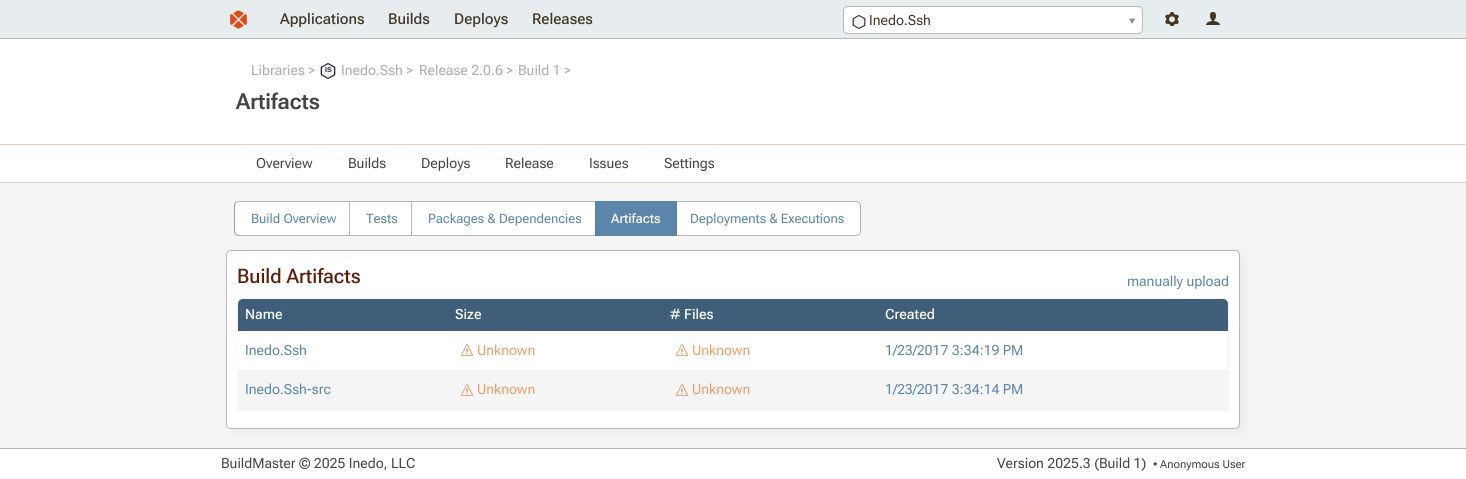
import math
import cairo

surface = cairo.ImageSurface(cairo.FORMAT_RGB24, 1466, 479)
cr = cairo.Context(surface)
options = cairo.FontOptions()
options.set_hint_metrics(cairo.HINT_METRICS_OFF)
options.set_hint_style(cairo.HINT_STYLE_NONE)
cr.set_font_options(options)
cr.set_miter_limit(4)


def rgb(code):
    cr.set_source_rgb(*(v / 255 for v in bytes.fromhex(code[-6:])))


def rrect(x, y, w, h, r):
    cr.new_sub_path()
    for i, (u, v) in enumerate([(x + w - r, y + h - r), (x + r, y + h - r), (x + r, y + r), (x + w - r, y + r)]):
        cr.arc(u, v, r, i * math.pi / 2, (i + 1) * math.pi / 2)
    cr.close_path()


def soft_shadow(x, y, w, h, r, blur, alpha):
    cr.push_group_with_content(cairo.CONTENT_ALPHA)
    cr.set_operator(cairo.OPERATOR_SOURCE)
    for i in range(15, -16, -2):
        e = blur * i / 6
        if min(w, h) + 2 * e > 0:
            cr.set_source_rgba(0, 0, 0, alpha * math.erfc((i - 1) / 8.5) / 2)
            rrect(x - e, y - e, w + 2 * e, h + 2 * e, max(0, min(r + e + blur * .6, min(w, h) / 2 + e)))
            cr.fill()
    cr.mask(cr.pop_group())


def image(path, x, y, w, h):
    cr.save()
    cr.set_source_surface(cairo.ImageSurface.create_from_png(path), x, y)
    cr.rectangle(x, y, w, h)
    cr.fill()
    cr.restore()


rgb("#f5f5f5")
cr.paint()
rgb("#e7edef")
cr.rectangle(0, 0, 1466, 38)
cr.fill()
rgb("#ebebeb")
soft_shadow(0, 43, 1466, 107, 0, 5, 1)
image("img/1.png", 230, 10, 17, 19)
rgb("#ffffff")
rrect(843.5, 6.5, 299, 27, 4.5)
cr.fill_preserve()
rgb("#b8b8b8")
cr.set_line_width(1)
cr.stroke()
rgb("#ffffff")
rrect(844, 7, 298, 26, 5)
cr.fill()
image("img/2.png", 852, 15, 14, 14)
image("img/3.png", 1129, 18, 7, 6)
image("img/4.png", 1165, 12, 14, 14)
image("img/5.png", 1206, 12, 14, 13)
for x, y, w, h, color in [
    (0, 39, 1466, 105, "#ffffff"),
    (0, 38, 1466, 1, "#b8b8b8"),
    (0, 144, 1466, 1, "#fac7b5"),
]:
    rgb(color)
    cr.rectangle(x, y, w, h)
    cr.fill()
image("img/6.png", 320, 63, 16, 16)
rgb("#ffffff")
cr.rectangle(0, 145, 1466, 37)
cr.fill()
rgb("#fac7b5")
cr.rectangle(0, 182, 1466, 1)
cr.fill()
rgb("#ffffff")
cr.new_path()
cr.move_to(239, 201)
cr.line_to(353, 201)
cr.line_to(353, 236)
cr.line_to(239, 236)
cr.curve_to(236, 236, 234, 234, 234, 231)
cr.line_to(234, 206)
cr.curve_to(234, 203, 236, 201, 239, 201)
cr.close_path()
cr.fill()
rgb("#b8b8b8")
cr.new_path()
cr.move_to(239, 201)
cr.curve_to(238, 201, 236, 202, 235, 202)
cr.line_to(236, 203)
cr.line_to(239, 202)
cr.line_to(352, 202)
cr.line_to(353, 201)
cr.close_path()
cr.fill()
cr.new_path()
cr.move_to(353, 236)
cr.line_to(352, 235)
cr.line_to(239, 235)
cr.line_to(236, 234)
cr.line_to(235, 235)
cr.curve_to(236, 236, 238, 236, 239, 236)
cr.close_path()
cr.fill()
rgb("#8da0b1")
cr.new_path()
cr.move_to(234, 206)
cr.line_to(234, 231)
cr.curve_to(234, 232.5, 234.5, 234, 235.5, 234.5)
cr.line_to(236, 234)
cr.curve_to(235.5, 233, 235, 232, 235, 231)
cr.line_to(235, 206)
cr.curve_to(235, 205, 235.5, 204, 236, 203)
cr.line_to(235.5, 202.5)
cr.curve_to(234.5, 203, 234, 204.5, 234, 206)
cr.close_path()
cr.fill()
rgb("#ffffff")
cr.rectangle(353, 202, 58, 33)
cr.fill()
cr.rectangle(349.5, 201.5, 65, 34)
rgb("#b8b8b8")
cr.stroke()
rgb("#ffffff")
cr.rectangle(412, 202, 183, 33)
cr.fill()
cr.rectangle(411.5, 201.5, 187, 34)
rgb("#b8b8b8")
cr.stroke()
rgb("#ffffff")
cr.new_path()
cr.move_to(673.5, 201.5)
cr.line_to(856, 201.5)
cr.curve_to(858.5, 201.5, 860.5, 203.5, 860.5, 206)
cr.line_to(860.5, 231)
cr.curve_to(860.5, 233.5, 858.5, 235.5, 856, 235.5)
cr.line_to(673.5, 235.5)
cr.close_path()
cr.fill_preserve()
rgb("#b8b8b8")
cr.stroke()
rgb("#5b85aa")
cr.rectangle(595, 201, 82, 35)
cr.fill()
rgb("#ebebeb")
soft_shadow(231, 255, 1014, 179, 5, 5, 1)
rgb("#ffffff")
rrect(226.5, 250.5, 1013, 178, 4.5)
cr.fill_preserve()
rgb("#b8b8b8")
cr.stroke()
cr.new_path()
cr.move_to(242, 298.5)
cr.line_to(1224, 298.5)
cr.curve_to(1226.5, 298.5, 1228.5, 300.5, 1228.5, 303)
cr.line_to(1228.5, 410.5)
cr.line_to(237.5, 410.5)
cr.line_to(237.5, 303)
cr.curve_to(237.5, 300.5, 239.5, 298.5, 242, 298.5)
cr.close_path()
rgb("#f5f5f5")
cr.stroke()
rgb("#ffffff")
cr.rectangle(238, 299, 990, 3)
cr.fill()
rgb("#3e5e79")
cr.new_path()
cr.move_to(243, 299)
cr.line_to(448, 299)
cr.line_to(448, 331)
cr.line_to(238, 331)
cr.line_to(238, 304)
cr.curve_to(238, 301, 240, 299, 243, 299)
cr.close_path()
cr.fill()
cr.rectangle(448, 299, 751, 32)
cr.fill()
cr.new_path()
cr.move_to(1199, 299)
cr.line_to(1223, 299)
cr.curve_to(1226, 299, 1228, 301, 1228, 304)
cr.line_to(1228, 331)
cr.line_to(1199, 331)
cr.close_path()
cr.fill()
image("img/7.png", 461, 344, 12, 12)
image("img/7.png", 676, 344, 12, 12)
rgb("#f5f5f5")
cr.rectangle(238, 370, 990, 40)
cr.fill()
image("img/8.png", 461, 384, 12, 12)
image("img/8.png", 676, 384, 12, 12)
rgb("#ffffff")
cr.rectangle(0, 449, 1466, 30)
cr.fill()
rgb("#b8b8b8")
cr.rectangle(0, 448, 1466, 1)
cr.fill()
cr.select_font_face("Roboto Flex Medium")
cr.set_font_size(15)
rgb("#423629")
for x, y, s in [
    (280, 24, "Applications"),
    (388, 24, "Builds"),
    (454, 24, "Deploys"),
    (532, 24, "Releases"),
]:
    cr.move_to(x, y)
    cr.show_text(s)
cr.select_font_face("Roboto Flex")
cr.set_font_size(14)
cr.move_to(869, 25)
cr.show_text("Inedo.Ssh")
rgb("#a6adb6")
cr.move_to(251, 75)
cr.show_text("Libraries >")
cr.select_font_face("Liberation Sans", cairo.FONT_SLANT_NORMAL, cairo.FONT_WEIGHT_BOLD)
cr.set_font_size(7)
rgb("#282b3a")
cr.move_to(325, 72)
cr.show_text("IS")
cr.select_font_face("Roboto Flex")
cr.set_font_size(14)
rgb("#a6adb6")
for x, y, s in [
    (341, 75, "Inedo.Ssh >"),
    (419, 75, "Release 2.0.6 >"),
    (518, 75, "Build 1 >"),
]:
    cr.move_to(x, y)
    cr.show_text(s)
cr.select_font_face("Roboto Flex SemiBold")
cr.set_font_size(22)
rgb("#444444")
cr.move_to(236, 109)
cr.show_text("Artifacts")
cr.select_font_face("Roboto Flex")
cr.set_font_size(14)
for x, y, s in [
    (256, 168, "Overview"),
    (348, 168, "Builds"),
    (421, 168, "Deploys"),
    (505, 168, "Release"),
    (589, 168, "Issues"),
    (664, 168, "Settings"),
]:
    cr.move_to(x, y)
    cr.show_text(s)
cr.select_font_face("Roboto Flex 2")
cr.set_font_size(13)
rgb("#5b85aa")
for x, y, s in [
    (251, 223, "Build Overview"),
    (366, 223, "Tests"),
    (428, 223, "Packages & Dependencies"),
]:
    cr.move_to(x, y)
    cr.show_text(s)
cr.select_font_face("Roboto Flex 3 Medium")
rgb("#ffffff")
cr.move_to(611, 223)
cr.show_text("Artifacts")
cr.select_font_face("Roboto Flex 2")
rgb("#5b85aa")
cr.move_to(690, 223)
cr.show_text("Deployments & Executions")
cr.select_font_face("Roboto Flex 2 Medium")
cr.set_font_size(20)
rgb("#5d1d06")
cr.move_to(237, 283)
cr.show_text("Build Artifacts")
cr.select_font_face("Roboto Flex")
cr.set_font_size(14)
rgb("#5b85aa")
cr.move_to(1127, 286)
cr.show_text("manually upload")
cr.select_font_face("Roboto Flex Medium")
rgb("#ffffff")
for x, y, s in [
    (245, 319, "Name"),
    (455, 319, "Size"),
    (670, 319, "# Files"),
    (885, 319, "Created"),
]:
    cr.move_to(x, y)
    cr.show_text(s)
cr.select_font_face("Roboto Flex")
rgb("#5b85aa")
cr.move_to(245, 355)
cr.show_text("Inedo.Ssh")
rgb("#ee9d66")
cr.move_to(477, 355)
cr.show_text("Unknown")
cr.move_to(692, 355)
cr.show_text("Unknown")
rgb("#5b85aa")
cr.move_to(885, 355)
cr.show_text("1/23/2017 3:34:19 PM")
cr.move_to(245, 394)
cr.show_text("Inedo.Ssh-src")
rgb("#ee9d66")
cr.move_to(477, 394)
cr.show_text("Unknown")
cr.move_to(692, 394)
cr.show_text("Unknown")
rgb("#5b85aa")
cr.move_to(885, 394)
cr.show_text("1/23/2017 3:34:14 PM")
rgb("#444444")
cr.move_to(221, 468)
cr.show_text("BuildMaster © 2025 Inedo, LLC")
cr.move_to(997, 468)
cr.show_text("Version 2025.3 (Build 1)")
cr.select_font_face("Roboto Flex 3")
cr.set_font_size(11)
cr.move_to(1153, 468)
cr.show_text("• Anonymous User")
surface.write_to_png("page.png")
